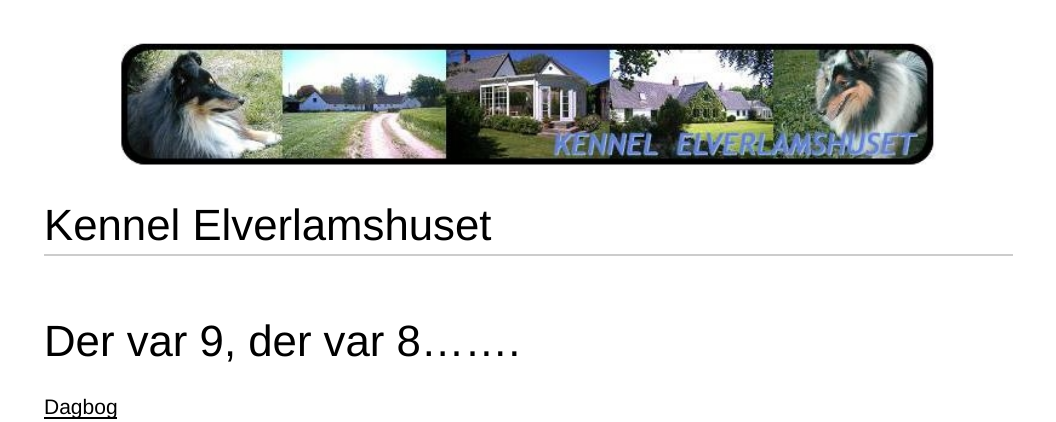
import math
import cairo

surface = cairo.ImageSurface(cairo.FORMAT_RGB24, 1056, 422)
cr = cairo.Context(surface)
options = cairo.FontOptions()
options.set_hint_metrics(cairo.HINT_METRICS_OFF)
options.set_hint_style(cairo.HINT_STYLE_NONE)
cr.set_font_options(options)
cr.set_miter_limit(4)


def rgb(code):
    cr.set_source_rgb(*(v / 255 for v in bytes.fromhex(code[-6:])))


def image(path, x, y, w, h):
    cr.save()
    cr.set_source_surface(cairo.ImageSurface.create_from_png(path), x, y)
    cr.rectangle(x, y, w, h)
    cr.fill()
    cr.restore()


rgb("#ffffff")
cr.paint()
image("img/1.png", 121, 43, 815, 122)
rgb("#cccccc")
cr.rectangle(44, 254, 969, 2)
cr.fill()
rgb("#000000")
cr.rectangle(44, 417, 73, 2)
cr.fill()
cr.select_font_face("Liberation Sans")
cr.set_font_size(43.75)
cr.move_to(44, 240)
cr.show_text("Kennel Elverlamshuset")
cr.move_to(44, 356)
cr.show_text("Der var 9, der var 8…….")
cr.set_font_size(21)
cr.move_to(44, 414)
cr.show_text("Dagbog")
surface.write_to_png("page.png")
